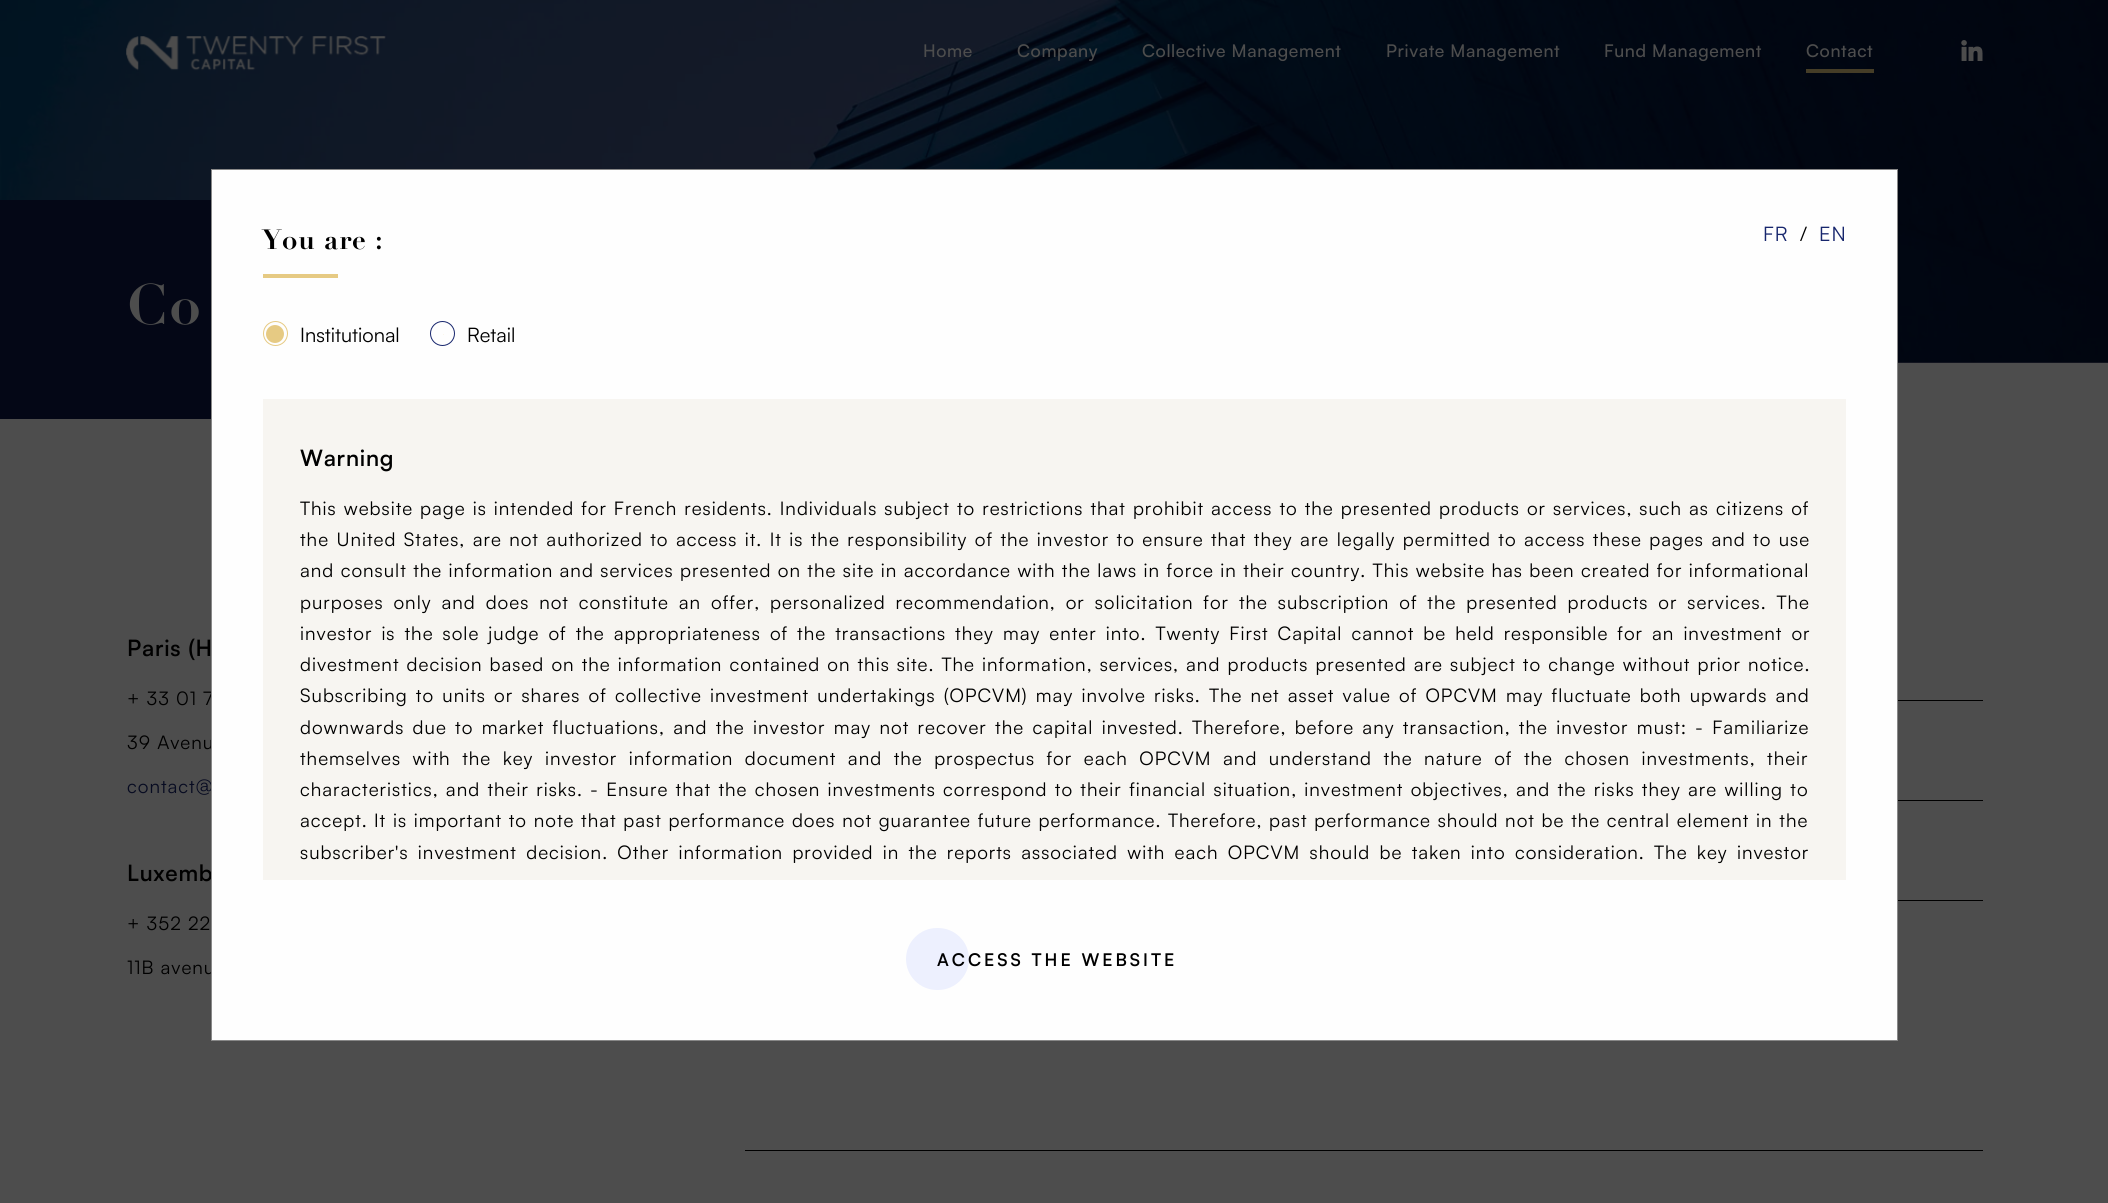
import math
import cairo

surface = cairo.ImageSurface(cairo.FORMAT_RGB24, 2108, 1203)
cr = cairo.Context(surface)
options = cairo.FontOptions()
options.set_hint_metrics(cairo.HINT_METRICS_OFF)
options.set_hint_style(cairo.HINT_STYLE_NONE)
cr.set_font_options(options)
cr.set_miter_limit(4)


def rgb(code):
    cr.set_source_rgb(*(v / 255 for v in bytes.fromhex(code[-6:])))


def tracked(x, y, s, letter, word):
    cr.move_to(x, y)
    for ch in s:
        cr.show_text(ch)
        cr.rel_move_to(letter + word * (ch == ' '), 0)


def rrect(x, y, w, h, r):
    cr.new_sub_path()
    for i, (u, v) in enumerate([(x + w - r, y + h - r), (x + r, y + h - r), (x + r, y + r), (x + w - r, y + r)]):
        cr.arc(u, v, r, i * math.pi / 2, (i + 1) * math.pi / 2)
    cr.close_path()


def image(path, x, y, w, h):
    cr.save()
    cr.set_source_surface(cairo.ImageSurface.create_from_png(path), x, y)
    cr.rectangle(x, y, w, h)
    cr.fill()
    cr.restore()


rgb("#4d4d4d")
cr.paint()
rgb("#20212a")
cr.rectangle(1898, 362, 210, 1)
cr.fill()
image("img/3.png", 0, 0, 2108, 363)
image("img/1.png", 126, 36, 260, 35)
rgb("#453d27")
cr.rectangle(1806, 69, 68, 4)
cr.fill()
image("img/2.png", 1961, 40, 22, 21)
for x, y, w, h, color in [
    (0, 200, 211, 219, "#040716"),
    (1898, 700, 85, 1, "#000000"),
    (1898, 800, 85, 1, "#000000"),
    (1898, 900, 85, 1, "#000000"),
    (745, 1150, 1238, 1, "#000000"),
]:
    rgb(color)
    cr.rectangle(x, y, w, h)
    cr.fill()
cr.select_font_face("Satoshi Medium")
cr.set_font_size(17.5)
rgb("#4d4d4d")
for x, y, s in [
    (923, 57, "Home"),
    (1017, 57, "Company"),
    (1142, 57, "Collective Management"),
    (1386, 57, "Private Management"),
    (1604, 57, "Fund Management"),
    (1806, 57, "Contact"),
]:
    tracked(x, y, s, 0.6, 0)
cr.select_font_face("Didot", cairo.FONT_SLANT_NORMAL, cairo.FONT_WEIGHT_BOLD)
cr.set_font_size(56)
tracked(127, 324, "Co", 2, 0)
cr.select_font_face("Satoshi SemiBold")
cr.set_font_size(22.5)
rgb("#000000")
tracked(127, 656, "Paris (H", 0.75, 0)
cr.select_font_face("Satoshi")
cr.set_font_size(18.75)
tracked(127, 705, "+ 33 01 7", 1, 0)
tracked(127, 749, "39 Avenu", 1, 0)
rgb("#070b21")
tracked(127, 793, "contact@", 1, 0)
cr.select_font_face("Satoshi SemiBold")
cr.set_font_size(22.5)
rgb("#000000")
tracked(127, 881, "Luxemb", 0.75, 0)
cr.select_font_face("Satoshi")
cr.set_font_size(18.75)
tracked(127, 930, "+ 352 22", 1, 0)
tracked(127, 974, "11B avenu", 1, 0)
rgb("#fefefe")
cr.rectangle(211.5, 169.5, 1686, 871)
cr.fill_preserve()
rgb("#888888")
cr.set_line_width(1)
cr.stroke()
cr.select_font_face("Didot", cairo.FONT_SLANT_NORMAL, cairo.FONT_WEIGHT_BOLD)
cr.set_font_size(27.5)
rgb("#000000")
tracked(262, 249, "You are :", 0.75, 0)
rgb("#e6ca83")
cr.rectangle(263, 274, 75, 4)
cr.fill()
cr.arc(275.5, 333.5, 12, 0, 2 * math.pi)
cr.stroke()
cr.arc(275, 334, 9, 0, 2 * math.pi)
cr.fill()
cr.select_font_face("Satoshi")
cr.set_font_size(20)
rgb("#000000")
cr.move_to(300, 342)
cr.show_text("Institutional")
cr.new_path()
cr.arc(442.5, 333.5, 12, 0, 2 * math.pi)
rgb("#17266d")
cr.stroke()
rgb("#f9f4e5")
cr.arc(443.5, 334.5, 0.5, 0, 2 * math.pi)
cr.fill()
rgb("#000000")
cr.move_to(467, 342)
cr.show_text("Retail")
rgb("#17266d")
tracked(1763, 241, "FR", 1, 0)
rgb("#000000")
cr.move_to(1800, 241)
cr.show_text("/")
rgb("#17266d")
tracked(1819, 241, "EN", 1, 0)
rgb("#f7f5f1")
cr.rectangle(263, 399, 1583, 481)
cr.fill()
cr.select_font_face("Satoshi SemiBold")
cr.set_font_size(22.5)
rgb("#000000")
tracked(300, 466, "Warning", 0.75, 0)
cr.select_font_face("Satoshi")
cr.set_font_size(18.75)
tracked(300, 515, "This website page is intended for French residents. Individuals subject to restrictions that prohibit access to the presented products or services, such as citizens of", 1, 0.8)
tracked(300, 546, "the United States, are not authorized to access it. It is the responsibility of the investor to ensure that they are legally permitted to access these pages and to use", 1, 1.2)
tracked(300, 577, "and consult the information and services presented on the site in accordance with the laws in force in their country. This website has been created for informational", 1, 0.2)
tracked(300, 609, "purposes only and does not constitute an offer, personalized recommendation, or solicitation for the subscription of the presented products or services. The", 1, 3.7)
tracked(300, 640, "investor is the sole judge of the appropriateness of the transactions they may enter into. Twenty First Capital cannot be held responsible for an investment or", 1, 2.8)
tracked(300, 671, "divestment decision based on the information contained on this site. The information, services, and products presented are subject to change without prior notice.", 1, 0.9)
tracked(300, 702, "Subscribing to units or shares of collective investment undertakings (OPCVM) may involve risks. The net asset value of OPCVM may fluctuate both upwards and", 1, 2)
tracked(300, 734, "downwards due to market fluctuations, and the investor may not recover the capital invested. Therefore, before any transaction, the investor must:", 1, 2.1)
tracked(1695, 734, "- Familiarize", 1, 2.1)
tracked(300, 765, "themselves with the key investor information document and the prospectus for each OPCVM and understand the nature of the chosen investments, their", 1, 5.3)
tracked(300, 796, "characteristics, and their risks.", 1, 1.1)
tracked(590, 796, "- Ensure that the chosen investments correspond to their financial situation, investment objectives, and the risks they are willing to", 1, 1.1)
tracked(300, 827, "accept.", 1, 0)
tracked(374, 827, "It is important to note that past performance does not guarantee future performance. Therefore, past performance should not be the central element in the", 1, 0.5)
tracked(300, 859, "subscriber's investment decision. Other information provided in the reports associated with each OPCVM should be taken into consideration. The key investor", 1, 3.1)
cr.set_source_rgba(0, 0.173, 1, 0.07)
rrect(906, 928, 63, 62, 31)
cr.fill()
cr.select_font_face("Satoshi SemiBold")
cr.set_font_size(17.5)
rgb("#000000")
tracked(937, 966, "ACCESS THE WEBSITE", 3, 0)
surface.write_to_png("page.png")
